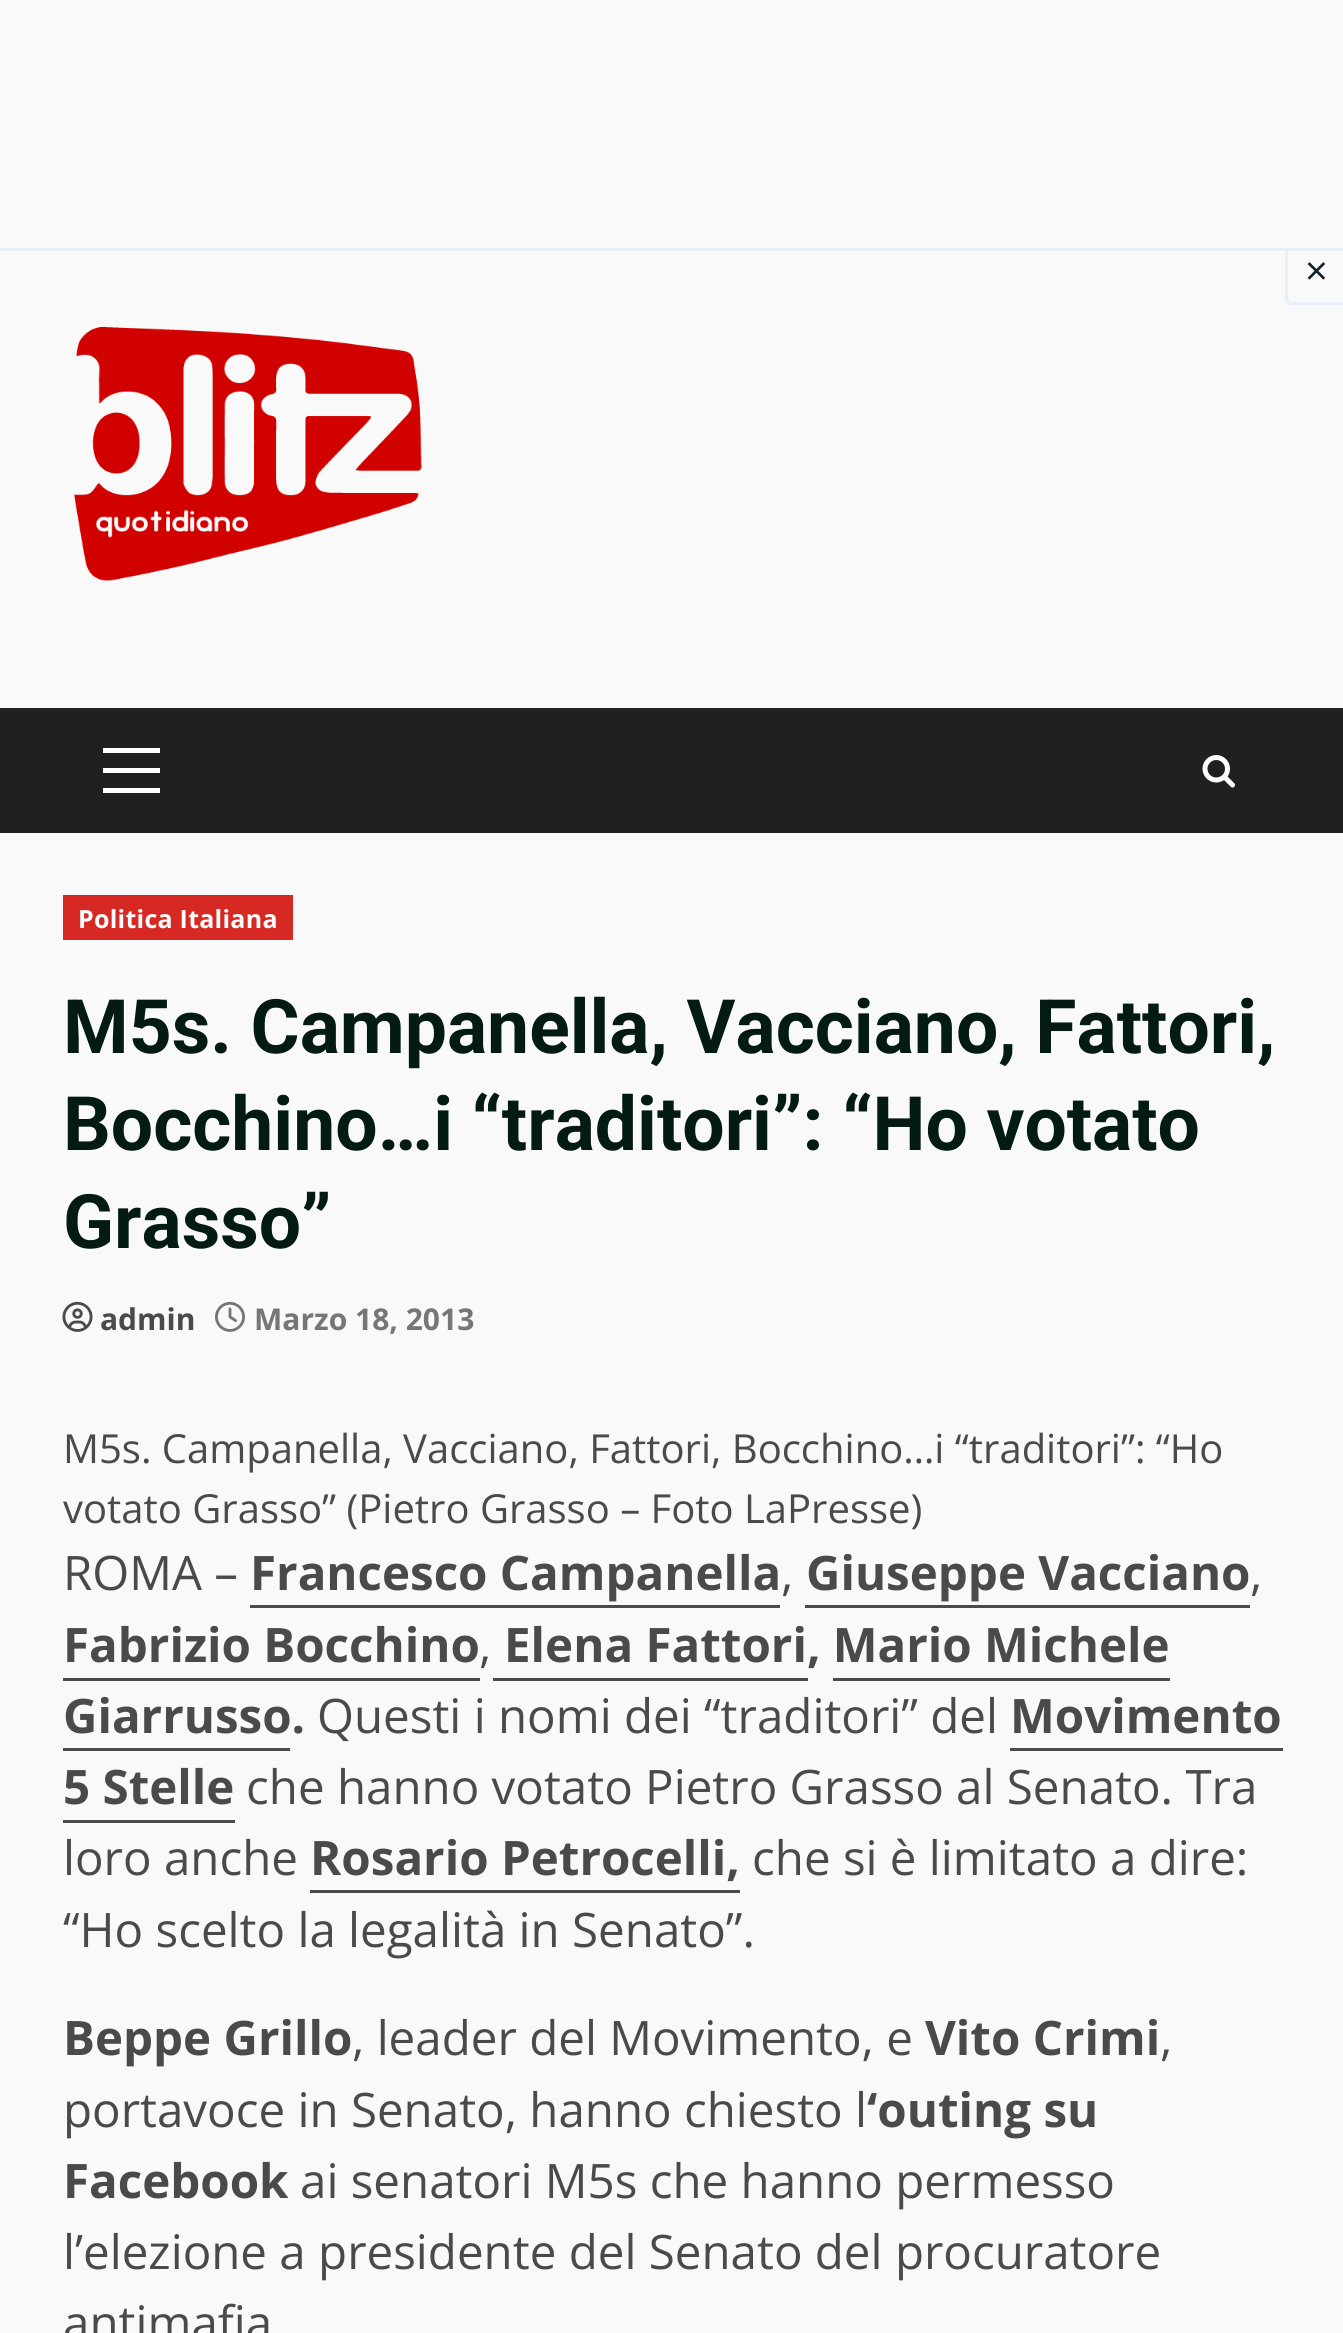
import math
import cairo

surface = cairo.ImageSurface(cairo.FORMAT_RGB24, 1343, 2333)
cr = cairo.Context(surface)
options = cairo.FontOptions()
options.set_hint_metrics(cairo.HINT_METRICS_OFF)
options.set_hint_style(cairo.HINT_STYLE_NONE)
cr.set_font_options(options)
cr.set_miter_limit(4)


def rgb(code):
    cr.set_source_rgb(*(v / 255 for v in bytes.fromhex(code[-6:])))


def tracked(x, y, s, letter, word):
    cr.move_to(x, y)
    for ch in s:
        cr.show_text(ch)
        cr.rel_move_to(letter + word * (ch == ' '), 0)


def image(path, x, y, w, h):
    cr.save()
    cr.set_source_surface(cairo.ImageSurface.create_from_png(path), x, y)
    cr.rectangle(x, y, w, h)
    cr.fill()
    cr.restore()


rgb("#f9f9f9")
cr.paint()
rgb("#e8eef9")
cr.set_fill_rule(cairo.FILL_RULE_EVEN_ODD)
cr.new_path()
cr.move_to(1285, 245)
cr.line_to(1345, 245)
cr.line_to(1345, 305)
cr.line_to(1292, 305)
cr.curve_to(1288, 305, 1285, 302, 1285, 298)
cr.close_path()
cr.move_to(1288, 245)
cr.line_to(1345, 245)
cr.line_to(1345, 302)
cr.line_to(1292, 302)
cr.curve_to(1290, 302, 1288, 300, 1288, 298)
cr.close_path()
cr.fill()
rgb("#fafafa")
cr.rectangle(1285, 245, 3, 3)
cr.fill()
rgb("#e8eef9")
cr.rectangle(0, 248, 1343, 3)
cr.fill()
image("img/1.png", 74, 327, 348, 254)
for x, y, w, h, color in [
    (0, 708, 1343, 125, "#202020"),
    (103, 768, 57, 5, "#ffffff"),
    (103, 748, 57, 5, "#ffffff"),
    (103, 788, 57, 5, "#ffffff"),
]:
    rgb(color)
    cr.rectangle(x, y, w, h)
    cr.fill()
image("img/2.png", 1202, 755, 33, 33)
rgb("#d72924")
cr.rectangle(63, 895, 230, 45)
cr.fill()
image("img/3.png", 62, 1301, 31, 31)
image("img/4.png", 215, 1301, 30, 31)
for x, y, w, h, color in [
    (250, 1605, 530, 3, "#4a4a4a"),
    (805, 1605, 445, 3, "#4a4a4a"),
    (63, 1678, 417, 3, "#4a4a4a"),
    (493, 1678, 315, 3, "#4a4a4a"),
    (833, 1678, 337, 3, "#4a4a4a"),
    (63, 1748, 227, 3, "#4a4a4a"),
    (1010, 1748, 273, 3, "#4a4a4a"),
    (63, 1820, 172, 3, "#4a4a4a"),
    (310, 1890, 430, 3, "#4a4a4a"),
]:
    rgb(color)
    cr.rectangle(x, y, w, h)
    cr.fill()
cr.select_font_face("Open Sans")
cr.set_font_size(40)
rgb("#112233")
cr.move_to(1305, 285)
cr.show_text("×")
cr.select_font_face("Open Sans", cairo.FONT_SLANT_NORMAL, cairo.FONT_WEIGHT_BOLD)
cr.set_font_size(25)
rgb("#ffffff")
tracked(78, 928, "Politica Italiana", 0.25, 0)
cr.select_font_face("Roboto", cairo.FONT_SLANT_NORMAL, cairo.FONT_WEIGHT_BOLD)
cr.set_font_size(75)
rgb("#031b11")
for x, y, s in [
    (63, 1053, "M5s. Campanella, Vacciano, Fattori,"),
    (63, 1150, "Bocchino…i “traditori”: “Ho votato"),
    (63, 1248, "Grasso”"),
]:
    cr.move_to(x, y)
    cr.show_text(s)
cr.select_font_face("Open Sans", cairo.FONT_SLANT_NORMAL, cairo.FONT_WEIGHT_BOLD)
cr.set_font_size(30)
rgb("#4a4a4a")
cr.move_to(100, 1330)
cr.show_text("admin")
rgb("#767676")
cr.move_to(254, 1330)
cr.show_text("Marzo 18, 2013")
cr.select_font_face("Open Sans")
cr.set_font_size(40)
rgb("#4a4a4a")
cr.move_to(63, 1463)
cr.show_text("M5s. Campanella, Vacciano, Fattori, Bocchino…i “traditori”: “Ho")
cr.move_to(63, 1523)
cr.show_text("votato Grasso” (Pietro Grasso – Foto LaPresse)")
cr.set_font_size(47.5)
cr.move_to(63, 1590)
cr.show_text("ROMA –")
cr.select_font_face("Open Sans", cairo.FONT_SLANT_NORMAL, cairo.FONT_WEIGHT_BOLD)
cr.move_to(250, 1590)
cr.show_text("Francesco Campanella")
cr.select_font_face("Open Sans")
cr.move_to(781, 1590)
cr.show_text(",")
cr.select_font_face("Open Sans", cairo.FONT_SLANT_NORMAL, cairo.FONT_WEIGHT_BOLD)
cr.move_to(806, 1590)
cr.show_text("Giuseppe Vacciano")
cr.select_font_face("Open Sans")
cr.move_to(1250, 1590)
cr.show_text(",")
cr.select_font_face("Open Sans", cairo.FONT_SLANT_NORMAL, cairo.FONT_WEIGHT_BOLD)
cr.move_to(63, 1662)
cr.show_text("Fabrizio Bocchino")
cr.select_font_face("Open Sans")
cr.move_to(479, 1662)
cr.show_text(",")
cr.select_font_face("Open Sans", cairo.FONT_SLANT_NORMAL, cairo.FONT_WEIGHT_BOLD)
cr.move_to(504, 1662)
cr.show_text("Elena Fattori, Mario Michele")
cr.move_to(63, 1733)
cr.show_text("Giarrusso.")
cr.select_font_face("Open Sans")
cr.move_to(317, 1733)
cr.show_text("Questi i nomi dei “traditori” del")
cr.select_font_face("Open Sans", cairo.FONT_SLANT_NORMAL, cairo.FONT_WEIGHT_BOLD)
cr.move_to(1010, 1733)
cr.show_text("Movimento")
cr.move_to(63, 1804)
cr.show_text("5 Stelle")
cr.select_font_face("Open Sans")
cr.move_to(246, 1804)
cr.show_text("che hanno votato Pietro Grasso al Senato. Tra")
cr.move_to(63, 1875)
cr.show_text("loro anche")
cr.select_font_face("Open Sans", cairo.FONT_SLANT_NORMAL, cairo.FONT_WEIGHT_BOLD)
cr.move_to(310, 1875)
cr.show_text("Rosario Petrocelli,")
cr.select_font_face("Open Sans")
cr.move_to(752, 1875)
cr.show_text("che si è limitato a dire:")
cr.move_to(63, 1947)
cr.show_text("“Ho scelto la legalità in Senato”.")
cr.select_font_face("Open Sans", cairo.FONT_SLANT_NORMAL, cairo.FONT_WEIGHT_BOLD)
cr.move_to(63, 2055)
cr.show_text("Beppe Grillo")
cr.select_font_face("Open Sans")
cr.move_to(352, 2055)
cr.show_text(", leader del Movimento, e")
cr.select_font_face("Open Sans", cairo.FONT_SLANT_NORMAL, cairo.FONT_WEIGHT_BOLD)
cr.move_to(925, 2055)
cr.show_text("Vito Crimi")
cr.select_font_face("Open Sans")
cr.move_to(1160, 2055)
cr.show_text(",")
cr.move_to(63, 2127)
cr.show_text("portavoce in Senato, hanno chiesto l")
cr.select_font_face("Open Sans", cairo.FONT_SLANT_NORMAL, cairo.FONT_WEIGHT_BOLD)
cr.move_to(867, 2127)
cr.show_text("‘outing su")
cr.move_to(63, 2198)
cr.show_text("Facebook")
cr.select_font_face("Open Sans")
for x, y, s in [
    (300, 2198, "ai senatori M5s che hanno permesso"),
    (63, 2269, "l’elezione a presidente del Senato del procuratore"),
    (63, 2340, "antimafia"),
]:
    cr.move_to(x, y)
    cr.show_text(s)
surface.write_to_png("page.png")
